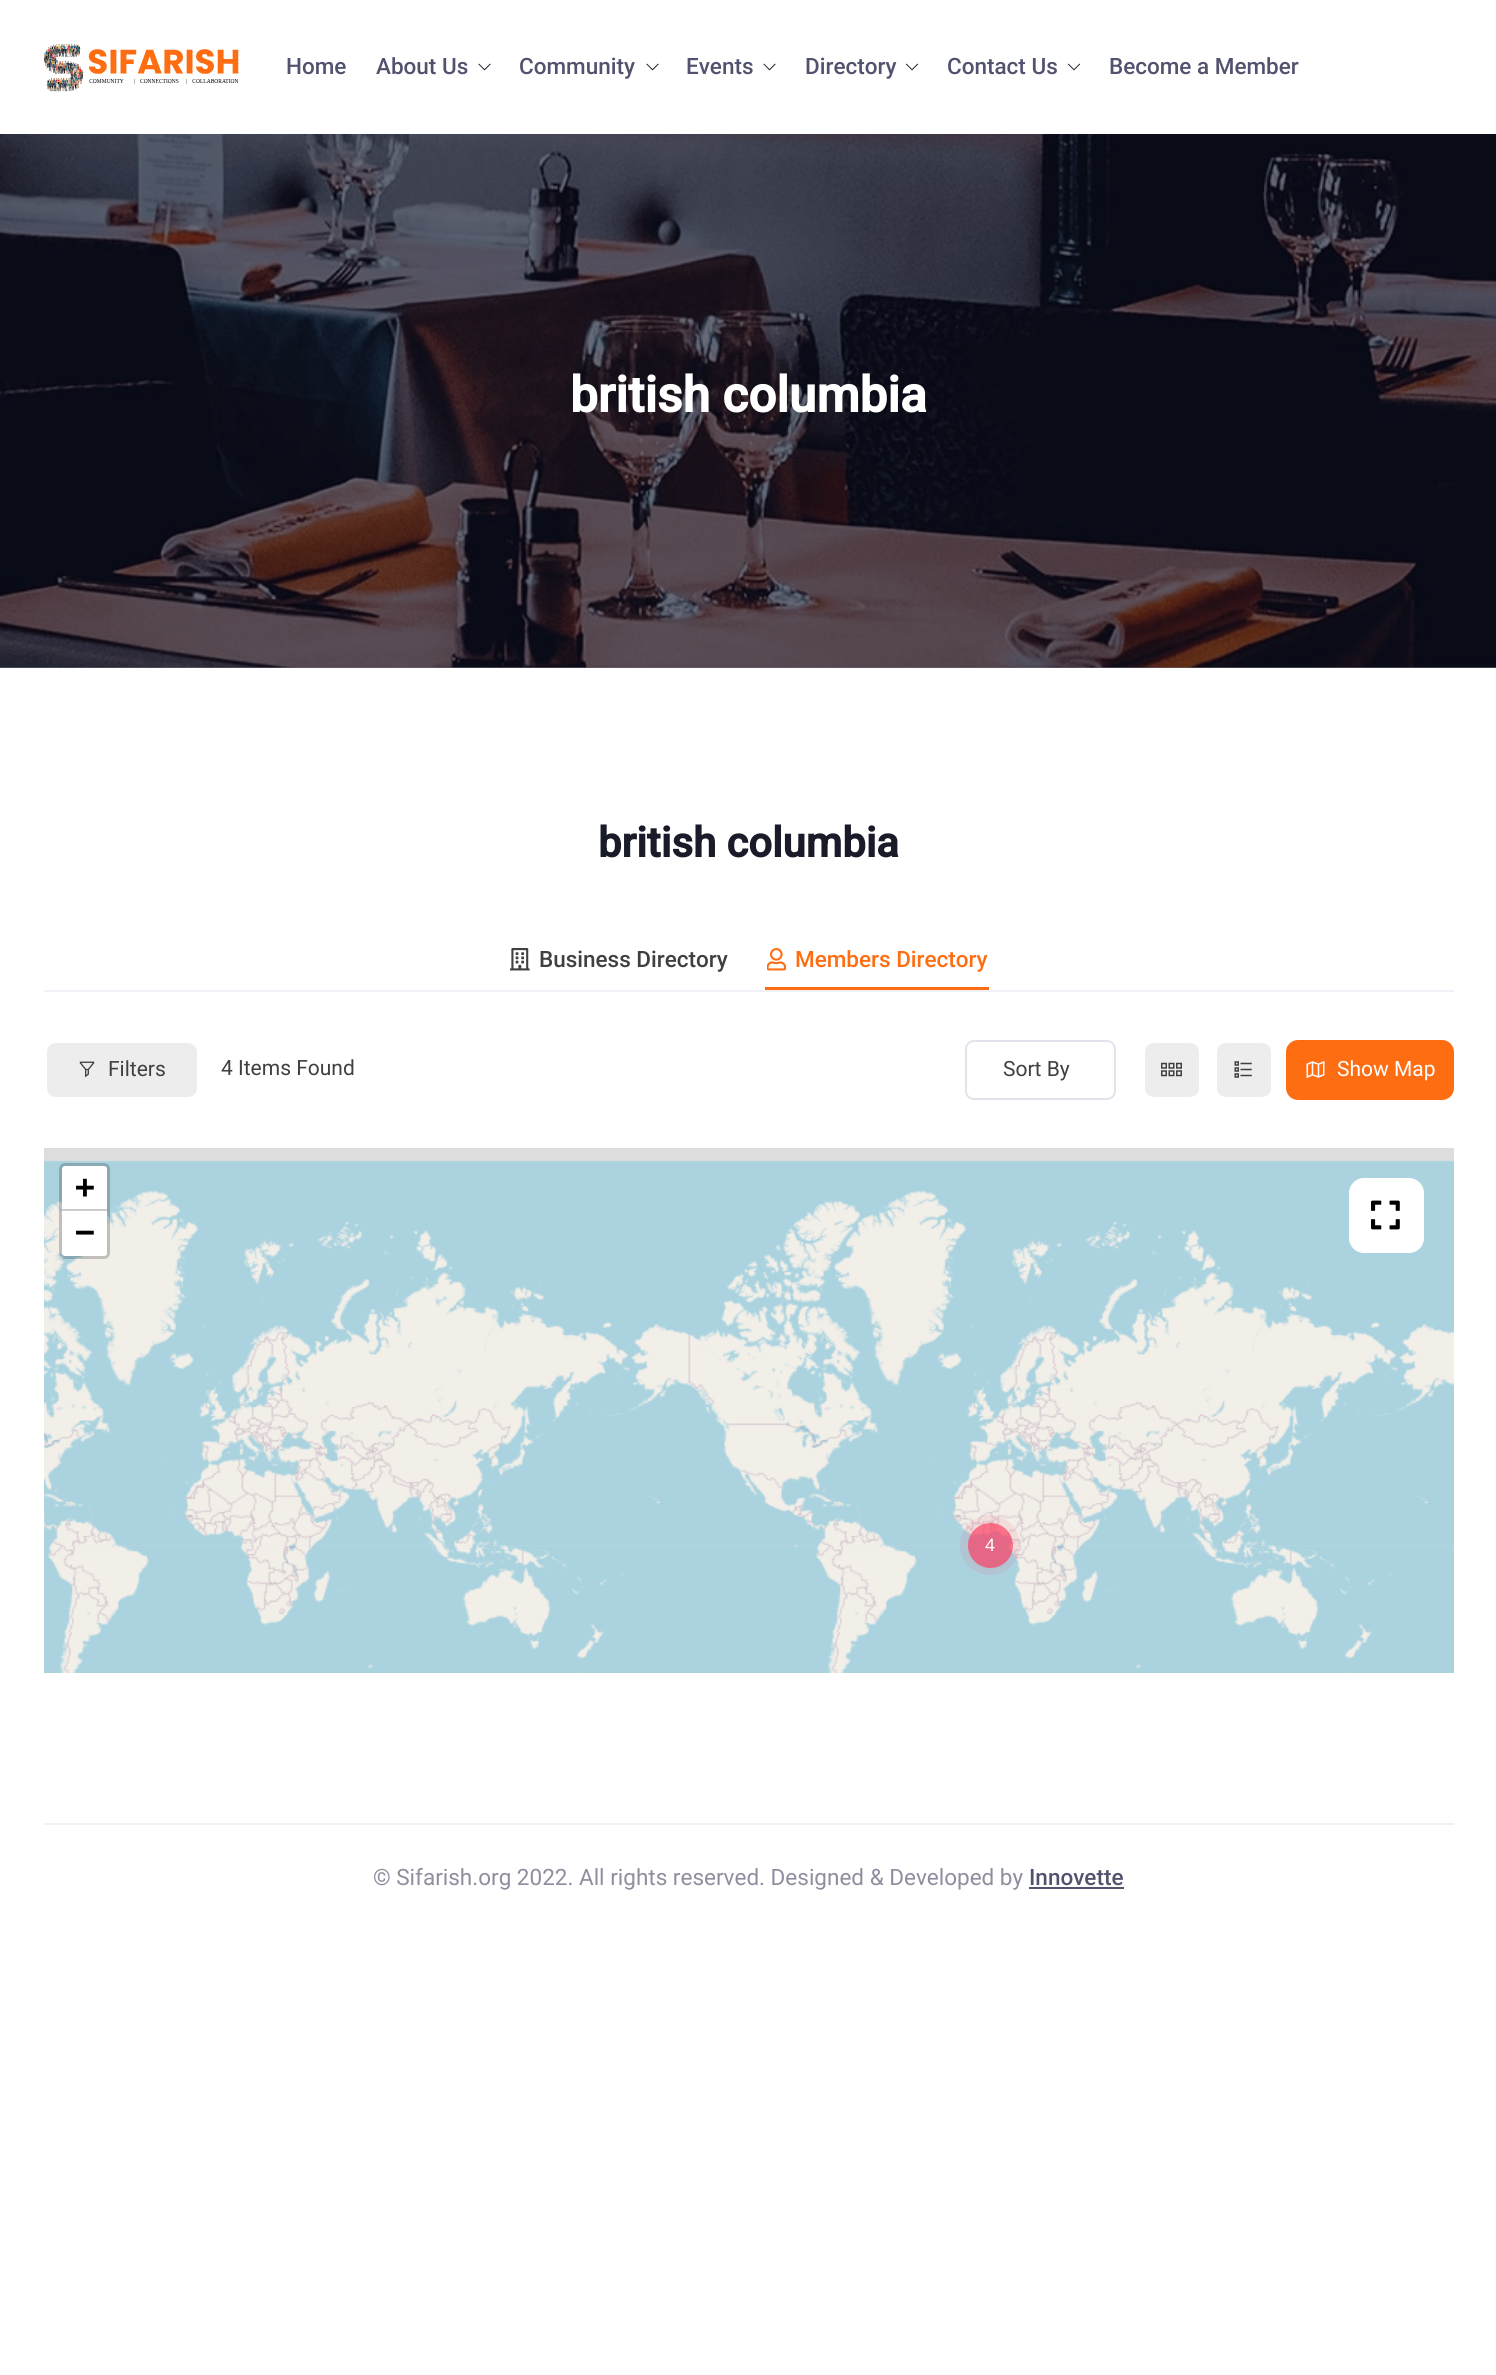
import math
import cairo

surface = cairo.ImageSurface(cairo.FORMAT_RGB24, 1496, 2375)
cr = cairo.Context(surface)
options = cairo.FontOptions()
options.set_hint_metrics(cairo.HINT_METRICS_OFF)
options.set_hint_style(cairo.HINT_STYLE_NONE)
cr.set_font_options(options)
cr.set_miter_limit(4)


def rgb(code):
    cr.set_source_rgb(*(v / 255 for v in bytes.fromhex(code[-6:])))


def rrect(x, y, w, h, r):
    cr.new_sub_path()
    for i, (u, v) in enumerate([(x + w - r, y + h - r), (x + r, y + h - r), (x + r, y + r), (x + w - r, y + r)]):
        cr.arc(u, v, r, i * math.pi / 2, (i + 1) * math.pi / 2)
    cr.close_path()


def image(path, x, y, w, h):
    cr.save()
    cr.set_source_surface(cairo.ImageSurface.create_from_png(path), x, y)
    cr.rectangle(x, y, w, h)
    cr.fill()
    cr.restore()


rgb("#ffffff")
cr.paint()
rgb("#696a77")
cr.rectangle(0, 667, 1496, 1)
cr.fill()
image("img/1.png", 44, 44, 195, 48)
image("img/2.png", 478, 63, 13, 8)
image("img/2.png", 646, 63, 13, 8)
image("img/2.png", 763, 63, 13, 8)
image("img/3.png", 905, 63, 14, 8)
image("img/3.png", 1067, 63, 14, 8)
image("img/4.png", 0, 134, 1496, 534)
rgb("#eff1f6")
cr.rectangle(44, 990, 1410, 2)
cr.fill()
image("img/5.png", 510, 948, 20, 23)
rgb("#ff6d12")
cr.rectangle(765, 987, 224, 3)
cr.fill()
image("img/6.png", 767, 948, 19, 23)
rgb("#ededed")
rrect(45.5, 1041.5, 153, 57, 10.5)
cr.fill_preserve()
rgb("#ffffff")
cr.set_line_width(3)
cr.stroke()
image("img/7.png", 79, 1061, 16, 17)
rrect(966, 1041, 149, 58, 8)
rgb("#e1e4ec")
cr.set_line_width(2)
cr.stroke()
rgb("#ededed")
rrect(1143.5, 1041.5, 57, 57, 10.5)
cr.fill_preserve()
rgb("#ffffff")
cr.set_line_width(3)
cr.stroke()
image("img/8.png", 1161, 1062, 21, 15)
rgb("#ededed")
rrect(1215.5, 1041.5, 57, 57, 10.5)
cr.fill_preserve()
rgb("#ffffff")
cr.stroke()
image("img/9.png", 1234, 1061, 18, 17)
rgb("#ff6d12")
rrect(1287.5, 1041.5, 165, 57, 10.5)
cr.fill_preserve()
cr.stroke()
image("img/10.png", 1306, 1060, 19, 19)
rgb("#dddddd")
cr.rectangle(44, 1148, 1410, 398)
cr.fill()
image("img/12.png", 44, 1160, 178, 385)
rrect(60.5, 1164.5, 48, 93, 4.5)
cr.set_source_rgba(0, 0, 0, 0.2)
cr.stroke()
rgb("#ffffff")
cr.new_path()
cr.move_to(65, 1166)
cr.line_to(104, 1166)
cr.curve_to(105.5, 1166, 107, 1167.5, 107, 1169)
cr.line_to(107, 1211)
cr.line_to(62, 1211)
cr.line_to(62, 1169)
cr.curve_to(62, 1167.5, 63.5, 1166, 65, 1166)
cr.close_path()
cr.fill()
rgb("#cccccc")
cr.rectangle(62, 1209, 45, 2)
cr.fill()
rgb("#ffffff")
cr.new_path()
cr.move_to(62, 1211)
cr.line_to(107, 1211)
cr.line_to(107, 1253)
cr.curve_to(107, 1254.5, 105.5, 1256, 104, 1256)
cr.line_to(65, 1256)
cr.curve_to(63.5, 1256, 62, 1254.5, 62, 1253)
cr.close_path()
cr.fill()
image("img/13.png", 990, 1160, 384, 385)
image("img/15.png", 1374, 1160, 80, 385)
rrect(1349, 1178, 75, 75, 15)
cr.fill()
image("img/11.png", 1371, 1200, 29, 30)
image("img/13.png", 222, 1160, 384, 385)
image("img/14.png", 606, 1160, 384, 385)
image("img/16.png", 44, 1544, 178, 129)
image("img/17.png", 222, 1544, 384, 129)
image("img/18.png", 606, 1544, 384, 129)
image("img/17.png", 990, 1544, 384, 129)
image("img/19.png", 1374, 1545, 80, 128)
cr.set_source_rgba(1, 0.22, 0.361, 0.1)
cr.arc(990, 1545, 30, 0, 2 * math.pi)
cr.fill()
cr.set_source_rgba(1, 0.22, 0.361, 0.65)
cr.arc(990.5, 1545.5, 22.5, 0, 2 * math.pi)
cr.fill()
rgb("#eff1f6")
cr.rectangle(44, 1823, 1410, 2)
cr.fill()
rgb("#51526e")
cr.rectangle(1029, 1887, 95, 2)
cr.fill()
cr.select_font_face("Roboto Medium")
cr.set_font_size(22.5)
for x, y, s in [
    (286, 74, "Home"),
    (376, 74, "About Us"),
    (519, 74, "Community"),
    (686, 74, "Events"),
    (805, 74, "Directory"),
    (947, 74, "Contact Us"),
    (1109, 74, "Become a Member"),
]:
    cr.move_to(x, y)
    cr.show_text(s)
cr.select_font_face("Roboto", cairo.FONT_SLANT_NORMAL, cairo.FONT_WEIGHT_BOLD)
cr.set_font_size(49.5)
rgb("#ffffff")
cr.move_to(570, 412)
cr.show_text("british columbia")
cr.set_font_size(41.75)
rgb("#1a1b29")
cr.move_to(598, 857)
cr.show_text("british columbia")
cr.select_font_face("Roboto Medium")
cr.set_font_size(22.5)
rgb("#404040")
cr.move_to(539, 967)
cr.show_text("Business Directory")
rgb("#ff6d12")
cr.move_to(795, 967)
cr.show_text("Members Directory")
cr.select_font_face("Roboto")
cr.set_font_size(21)
rgb("#404040")
for x, y, s in [
    (108, 1076, "Filters"),
    (221, 1075, "4 Items Found"),
    (1003, 1076, "Sort By"),
]:
    cr.move_to(x, y)
    cr.show_text(s)
rgb("#ffffff")
cr.move_to(1337, 1076)
cr.show_text("Show Map")
cr.select_font_face("DejaVu Sans Mono", cairo.FONT_SLANT_NORMAL, cairo.FONT_WEIGHT_BOLD)
cr.set_font_size(33)
rgb("#000000")
cr.move_to(75, 1198)
cr.show_text("+")
cr.move_to(75, 1243)
cr.show_text("−")
cr.select_font_face("Liberation Sans")
cr.set_font_size(18)
rgb("#ffffff")
cr.move_to(985, 1551)
cr.show_text("4")
cr.select_font_face("Roboto")
cr.set_font_size(22.5)
rgb("#8f8e9f")
cr.move_to(373, 1885)
cr.show_text("© Sifarish.org 2022. All rights reserved. Designed & Developed by")
cr.select_font_face("Roboto Medium")
rgb("#51526e")
cr.move_to(1029, 1885)
cr.show_text("Innovette")
surface.write_to_png("page.png")
